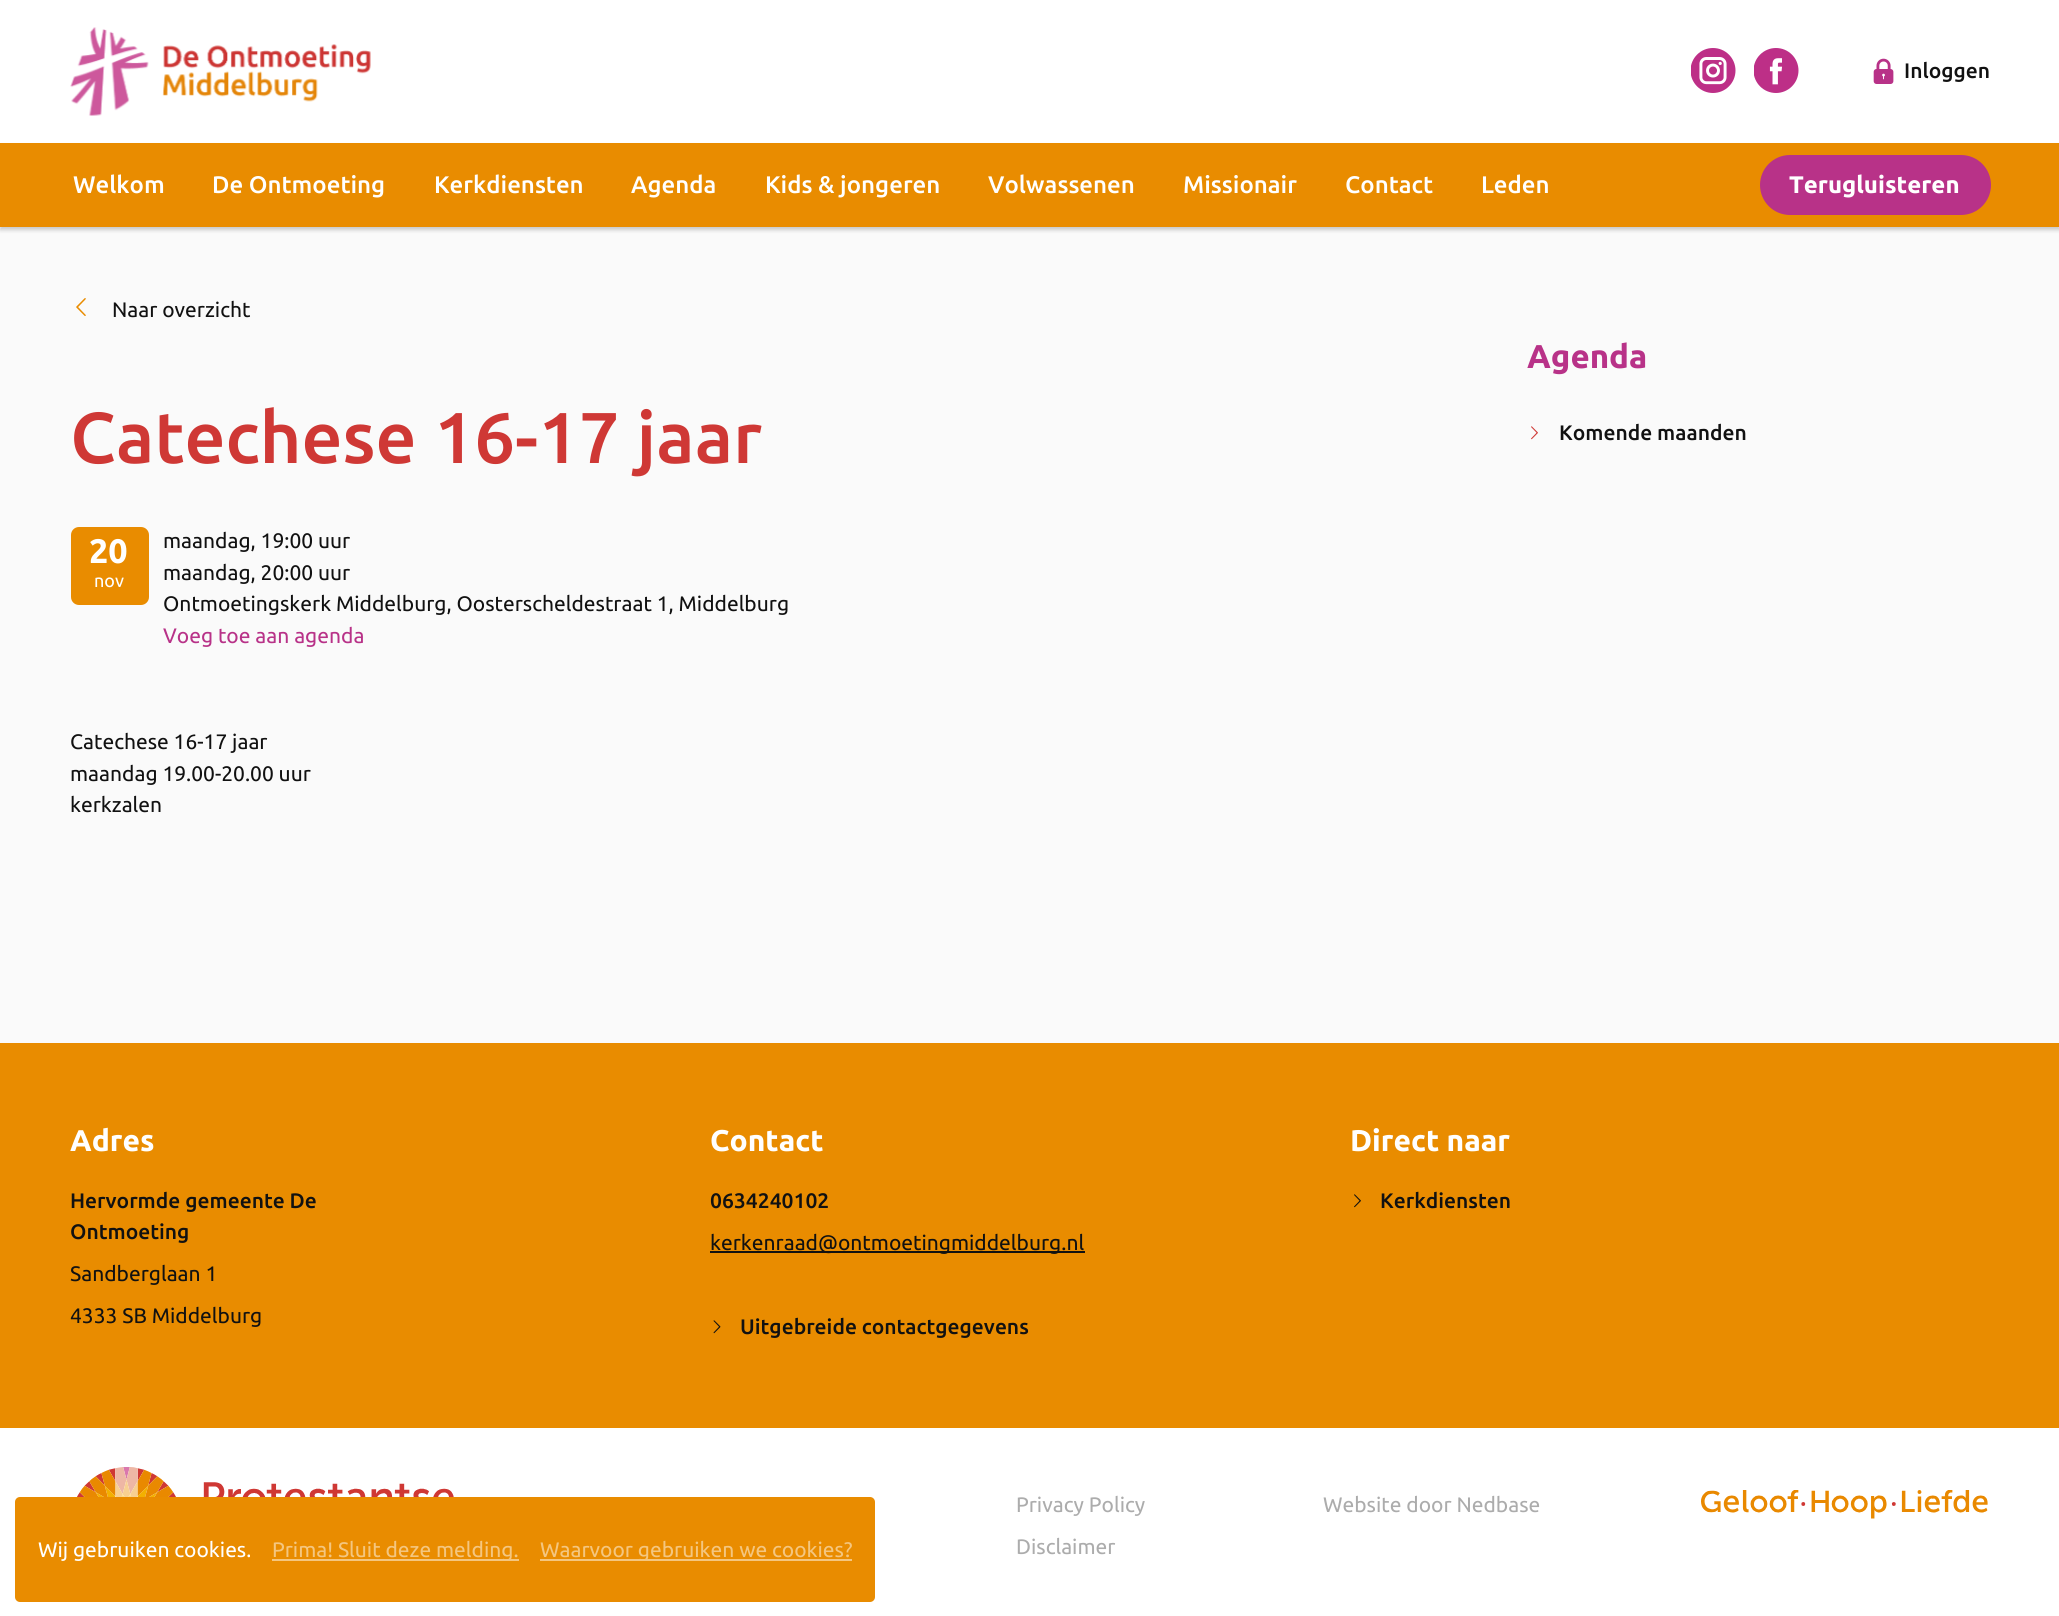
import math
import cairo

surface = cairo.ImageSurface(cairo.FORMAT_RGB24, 2059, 1616)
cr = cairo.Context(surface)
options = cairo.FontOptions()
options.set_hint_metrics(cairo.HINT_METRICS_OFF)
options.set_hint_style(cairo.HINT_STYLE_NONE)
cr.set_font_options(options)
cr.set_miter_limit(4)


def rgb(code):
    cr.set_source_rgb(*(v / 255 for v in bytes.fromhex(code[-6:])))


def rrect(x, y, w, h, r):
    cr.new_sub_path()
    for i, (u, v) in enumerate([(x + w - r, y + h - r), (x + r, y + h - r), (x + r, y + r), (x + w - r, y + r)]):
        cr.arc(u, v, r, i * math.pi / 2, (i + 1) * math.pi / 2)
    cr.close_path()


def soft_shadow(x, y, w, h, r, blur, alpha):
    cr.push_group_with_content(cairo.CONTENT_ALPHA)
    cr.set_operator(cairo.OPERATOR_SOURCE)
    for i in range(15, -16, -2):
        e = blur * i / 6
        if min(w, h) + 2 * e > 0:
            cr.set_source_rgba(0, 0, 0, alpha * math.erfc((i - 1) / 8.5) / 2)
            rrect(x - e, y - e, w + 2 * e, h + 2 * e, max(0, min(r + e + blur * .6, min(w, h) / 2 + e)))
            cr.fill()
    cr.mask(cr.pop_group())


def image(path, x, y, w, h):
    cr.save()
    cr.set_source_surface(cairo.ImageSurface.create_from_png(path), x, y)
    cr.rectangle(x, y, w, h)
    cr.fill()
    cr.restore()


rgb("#fafafa")
cr.paint()
rgb("#ffffff")
cr.rectangle(0, 0, 2059, 143)
cr.fill()
image("img/1.png", 70, 27, 301, 89)
image("img/2.png", 1691, 48, 45, 45)
image("img/3.png", 1754, 48, 45, 45)
image("img/4.png", 1873, 58, 21, 26)
rgb("#000000")
soft_shadow(0, 146, 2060, 84, 0, 2, 0.2)
rgb("#e98c00")
cr.rectangle(0, 143, 2059, 84)
cr.fill()
rgb("#b83288")
rrect(1760, 155, 231, 60, 30)
cr.fill()
image("img/5.png", 76, 298, 10, 18)
rgb("#e98c00")
rrect(71, 527, 78, 78, 8)
cr.fill()
image("img/6.png", 1531, 426, 7, 14)
cr.rectangle(0, 1043, 2059, 385)
cr.fill()
rgb("#111111")
cr.rectangle(710, 1251, 375, 2)
cr.fill()
image("img/7.png", 713, 1320, 8, 14)
image("img/8.png", 1354, 1194, 7, 14)
rgb("#ffffff")
cr.rectangle(0, 1428, 2059, 188)
cr.fill()
image("img/9.png", 77, 1467, 377, 30)
image("img/10.png", 1701, 1490, 287, 29)
rgb("#e98c00")
rrect(15, 1497, 860, 105, 5)
cr.fill()
rgb("#f4c680")
cr.rectangle(272, 1559, 247, 2)
cr.fill()
cr.rectangle(540, 1559, 312, 2)
cr.fill()
cr.select_font_face("Ubuntu Medium")
cr.set_font_size(21)
rgb("#111111")
cr.move_to(1904, 78)
cr.show_text("Inloggen")
cr.set_font_size(24)
rgb("#ffffff")
for x, y, s in [
    (73, 193, "Welkom"),
    (212, 193, "De Ontmoeting"),
    (434, 193, "Kerkdiensten"),
    (631, 193, "Agenda"),
    (765, 193, "Kids & jongeren"),
    (988, 193, "Volwassenen"),
    (1183, 193, "Missionair"),
    (1345, 193, "Contact"),
    (1481, 193, "Leden"),
]:
    cr.move_to(x, y)
    cr.show_text(s)
cr.select_font_face("Ubuntu", cairo.FONT_SLANT_NORMAL, cairo.FONT_WEIGHT_BOLD)
cr.move_to(1789, 193)
cr.show_text("Terugluisteren")
cr.select_font_face("Ubuntu")
cr.set_font_size(21)
rgb("#111111")
cr.move_to(112, 317)
cr.show_text("Naar overzicht")
cr.select_font_face("Ubuntu Medium")
cr.set_font_size(72)
rgb("#cf3835")
cr.move_to(70, 463)
cr.show_text("Catechese 16-17 jaar")
cr.select_font_face("Ubuntu", cairo.FONT_SLANT_NORMAL, cairo.FONT_WEIGHT_BOLD)
cr.set_font_size(34)
rgb("#ffffff")
cr.move_to(89, 563)
cr.show_text("20")
cr.select_font_face("Ubuntu")
cr.set_font_size(18)
cr.move_to(94, 587)
cr.show_text("nov")
cr.set_font_size(21)
rgb("#111111")
for x, y, s in [
    (163, 548, "maandag, 19:00 uur"),
    (163, 580, "maandag, 20:00 uur"),
    (163, 611, "Ontmoetingskerk Middelburg, Oosterscheldestraat 1, Middelburg"),
]:
    cr.move_to(x, y)
    cr.show_text(s)
rgb("#b83288")
cr.move_to(163, 643)
cr.show_text("Voeg toe aan agenda")
rgb("#111111")
for x, y, s in [
    (70, 749, "Catechese 16-17 jaar"),
    (70, 781, "maandag 19.00-20.00 uur"),
    (70, 812, "kerkzalen"),
]:
    cr.move_to(x, y)
    cr.show_text(s)
cr.select_font_face("Ubuntu", cairo.FONT_SLANT_NORMAL, cairo.FONT_WEIGHT_BOLD)
cr.set_font_size(33)
rgb("#b83288")
cr.move_to(1527, 368)
cr.show_text("Agenda")
cr.select_font_face("Ubuntu Medium")
cr.set_font_size(21)
rgb("#111111")
cr.move_to(1559, 440)
cr.show_text("Komende maanden")
cr.select_font_face("Ubuntu", cairo.FONT_SLANT_NORMAL, cairo.FONT_WEIGHT_BOLD)
cr.set_font_size(30)
rgb("#ffffff")
cr.move_to(70, 1151)
cr.show_text("Adres")
cr.select_font_face("Ubuntu Medium")
cr.set_font_size(21)
rgb("#111111")
cr.move_to(70, 1208)
cr.show_text("Hervormde gemeente De")
cr.move_to(70, 1239)
cr.show_text("Ontmoeting")
cr.select_font_face("Ubuntu")
cr.move_to(70, 1281)
cr.show_text("Sandberglaan 1")
cr.move_to(70, 1323)
cr.show_text("4333 SB Middelburg")
cr.select_font_face("Ubuntu", cairo.FONT_SLANT_NORMAL, cairo.FONT_WEIGHT_BOLD)
cr.set_font_size(30)
rgb("#ffffff")
cr.move_to(710, 1151)
cr.show_text("Contact")
cr.select_font_face("Ubuntu Medium")
cr.set_font_size(21)
rgb("#111111")
cr.move_to(710, 1208)
cr.show_text("0634240102")
cr.select_font_face("Ubuntu")
cr.move_to(710, 1250)
cr.show_text("kerkenraad@ontmoetingmiddelburg.nl")
cr.select_font_face("Ubuntu Medium")
cr.move_to(740, 1334)
cr.show_text("Uitgebreide contactgegevens")
cr.select_font_face("Ubuntu", cairo.FONT_SLANT_NORMAL, cairo.FONT_WEIGHT_BOLD)
cr.set_font_size(30)
rgb("#ffffff")
cr.move_to(1350, 1151)
cr.show_text("Direct naar")
cr.select_font_face("Ubuntu Medium")
cr.set_font_size(21)
rgb("#111111")
cr.move_to(1380, 1208)
cr.show_text("Kerkdiensten")
cr.select_font_face("Ubuntu")
rgb("#acacac")
for x, y, s in [
    (1016, 1512, "Privacy Policy"),
    (1016, 1554, "Disclaimer"),
    (1323, 1512, "Website door Nedbase"),
]:
    cr.move_to(x, y)
    cr.show_text(s)
rgb("#ffffff")
cr.move_to(38, 1557)
cr.show_text("Wij gebruiken cookies.")
rgb("#f4c680")
cr.move_to(272, 1557)
cr.show_text("Prima! Sluit deze melding.")
cr.move_to(540, 1557)
cr.show_text("Waarvoor gebruiken we cookies?")
surface.write_to_png("page.png")
